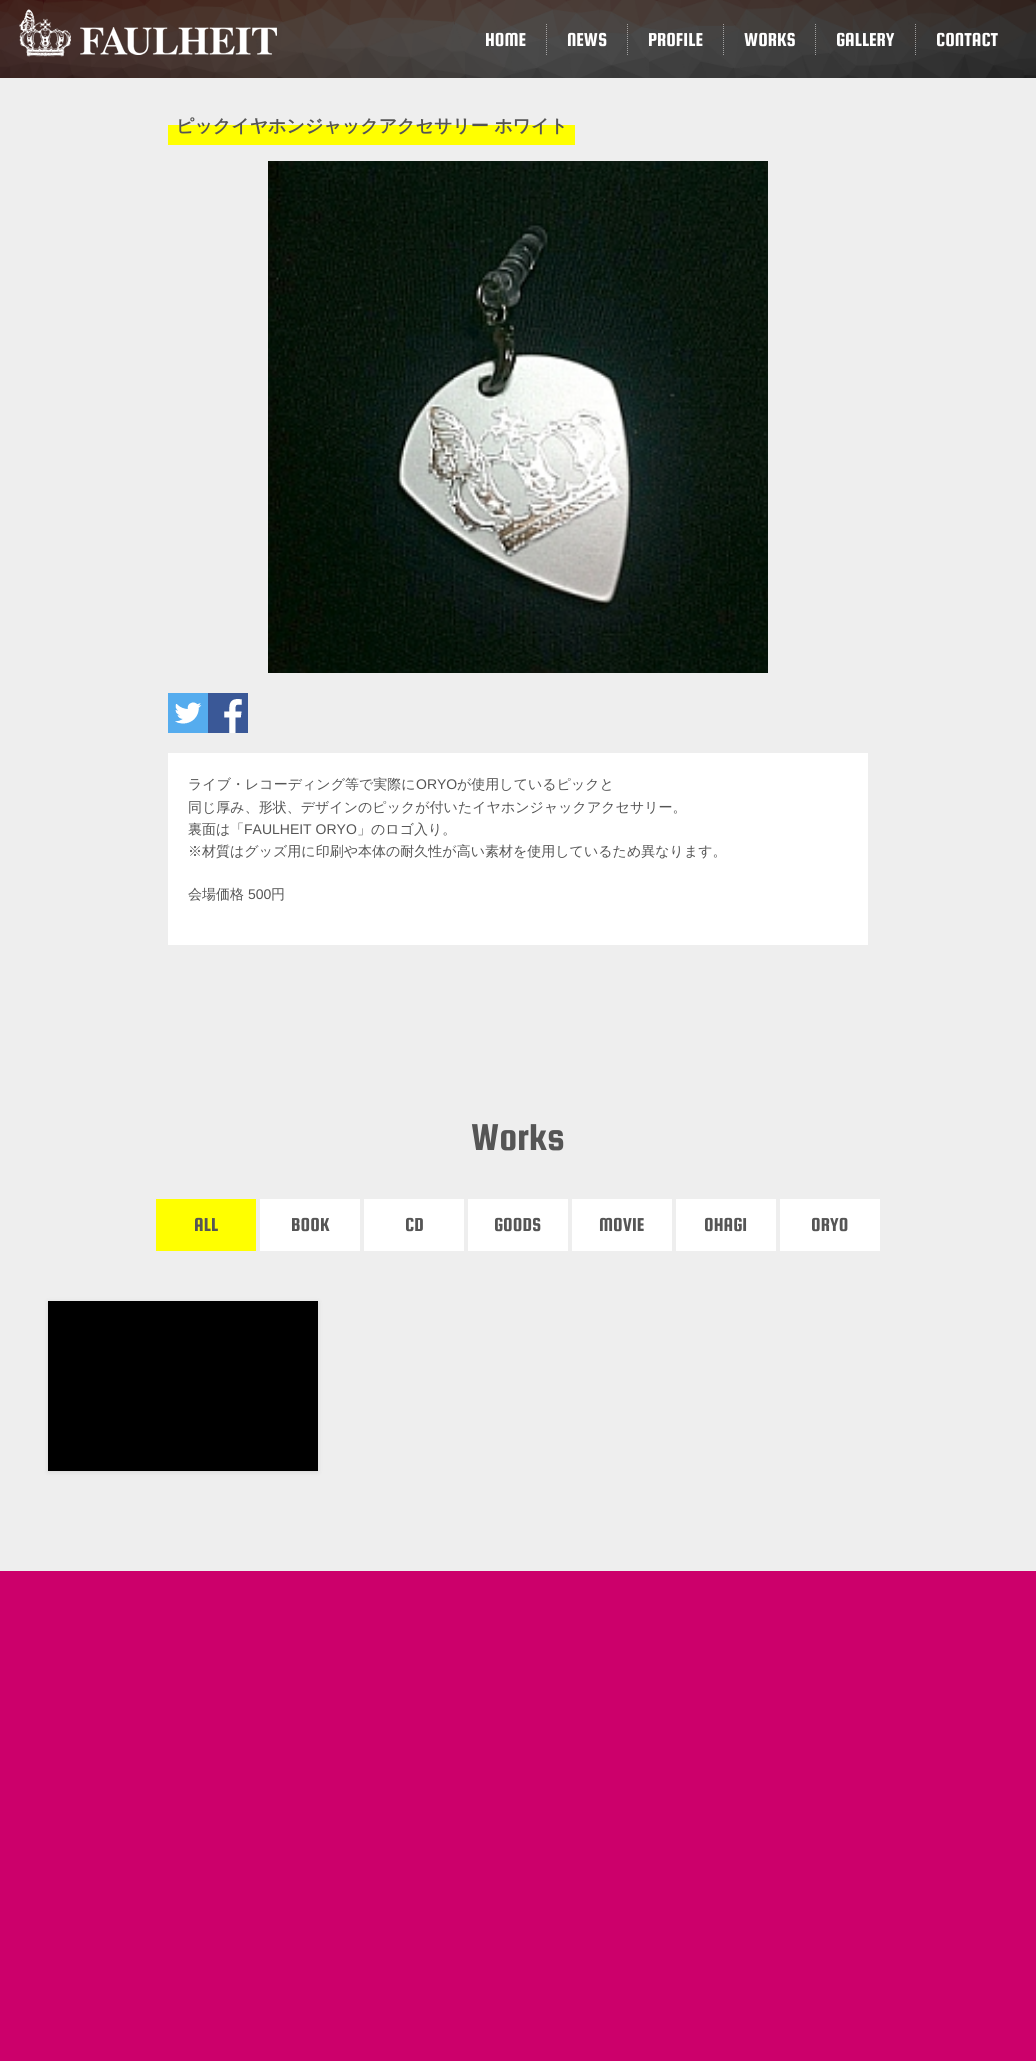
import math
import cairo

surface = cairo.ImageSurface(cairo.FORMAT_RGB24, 1036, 2061)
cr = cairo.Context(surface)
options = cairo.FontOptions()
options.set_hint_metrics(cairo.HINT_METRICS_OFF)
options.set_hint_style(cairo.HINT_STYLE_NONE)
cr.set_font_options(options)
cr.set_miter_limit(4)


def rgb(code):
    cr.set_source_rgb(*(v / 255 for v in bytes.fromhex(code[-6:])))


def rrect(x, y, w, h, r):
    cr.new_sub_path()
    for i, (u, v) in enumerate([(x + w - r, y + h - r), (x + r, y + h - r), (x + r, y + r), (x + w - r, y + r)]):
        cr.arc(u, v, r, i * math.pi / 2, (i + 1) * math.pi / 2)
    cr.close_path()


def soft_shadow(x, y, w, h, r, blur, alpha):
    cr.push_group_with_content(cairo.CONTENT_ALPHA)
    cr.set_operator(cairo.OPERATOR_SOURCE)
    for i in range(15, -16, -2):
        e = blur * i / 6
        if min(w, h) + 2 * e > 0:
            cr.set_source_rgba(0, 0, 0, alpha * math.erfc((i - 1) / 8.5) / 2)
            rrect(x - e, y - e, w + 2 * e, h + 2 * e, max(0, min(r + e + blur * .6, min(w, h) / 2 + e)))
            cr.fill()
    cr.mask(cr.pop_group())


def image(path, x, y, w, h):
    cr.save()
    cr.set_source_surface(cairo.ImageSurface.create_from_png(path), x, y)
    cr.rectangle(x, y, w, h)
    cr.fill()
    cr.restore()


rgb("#cc006b")
cr.paint()
image("img/1.png", 0, 0, 1036, 78)
image("img/2.png", 19, 9, 258, 48)
cr.new_path()
cr.move_to(546.5, 24)
cr.line_to(546.5, 56)
cr.set_source_rgba(1, 1, 1, 0.5)
cr.set_line_width(1)
cr.set_dash([1, 1])
cr.stroke()
cr.new_path()
cr.move_to(627.5, 24)
cr.line_to(627.5, 56)
cr.stroke()
cr.new_path()
cr.move_to(723.5, 24)
cr.line_to(723.5, 56)
cr.stroke()
cr.new_path()
cr.move_to(815.5, 24)
cr.line_to(815.5, 56)
cr.stroke()
cr.new_path()
cr.move_to(915.5, 24)
cr.line_to(915.5, 56)
cr.stroke()
rgb("#eeeeee")
cr.rectangle(0, 78, 1036, 1493)
cr.fill()
rgb("#ffff00")
cr.rectangle(168, 125, 407, 20)
cr.fill()
image("img/3.png", 268, 161, 500, 512)
rgb("#55acee")
cr.rectangle(168, 693, 40, 40)
cr.fill()
image("img/4.png", 175, 702, 27, 22)
rgb("#3a5897")
cr.rectangle(208, 693, 40, 40)
cr.fill()
image("img/5.png", 224, 699, 18, 34)
for x, y, w, h, color in [
    (168, 753, 700, 192, "#ffffff"),
    (156, 1199, 100, 52, "#ffff00"),
    (260, 1199, 100, 52, "#ffffff"),
    (364, 1199, 100, 52, "#ffffff"),
    (468, 1199, 100, 52, "#ffffff"),
    (572, 1199, 100, 52, "#ffffff"),
    (676, 1199, 100, 52, "#ffffff"),
    (780, 1199, 100, 52, "#ffffff"),
]:
    rgb(color)
    cr.rectangle(x, y, w, h)
    cr.fill()
rgb("#000000")
soft_shadow(48, 1302, 270, 170, 0, 2.5, 0.1)
rgb("#000000")
cr.rectangle(48, 1301, 270, 170)
cr.fill()
cr.select_font_face("Squada One")
cr.set_font_size(20)
rgb("#ffffff")
for x, y, s in [
    (485, 46, "HOME"),
    (567, 46, "NEWS"),
    (648, 46, "PROFILE"),
    (744, 46, "WORKS"),
    (836, 46, "GALLERY"),
    (936, 46, "CONTACT"),
]:
    cr.move_to(x, y)
    cr.show_text(s)
cr.select_font_face("WenQuanYi Zen Hei", cairo.FONT_SLANT_NORMAL, cairo.FONT_WEIGHT_BOLD)
cr.set_font_size(18)
rgb("#555555")
cr.move_to(176, 132)
cr.show_text("ピックイヤホンジャックアクセサリー ホワイト")
cr.select_font_face("WenQuanYi Zen Hei Medium")
cr.set_font_size(14)
cr.move_to(188, 789)
cr.show_text("ライブ・レコーディング等で実際に")
cr.select_font_face("Liberation Sans")
cr.move_to(416, 789)
cr.show_text("ORYO")
cr.select_font_face("WenQuanYi Zen Hei Medium")
for x, y, s in [
    (457, 789, "が使用しているピックと"),
    (188, 812, "同じ厚み、形状、デザインのピックが付いたイヤホンジャックアクセサリー。"),
    (188, 834, "裏面は「"),
]:
    cr.move_to(x, y)
    cr.show_text(s)
cr.select_font_face("Liberation Sans")
cr.move_to(244, 834)
cr.show_text("FAULHEIT ORYO")
cr.select_font_face("WenQuanYi Zen Hei Medium")
for x, y, s in [
    (357, 834, "」のロゴ入り。"),
    (188, 856, "※材質はグッズ用に印刷や本体の耐久性が高い素材を使用しているため異なります。"),
    (188, 899, "会場価格"),
]:
    cr.move_to(x, y)
    cr.show_text(s)
cr.select_font_face("Liberation Sans")
cr.move_to(248, 899)
cr.show_text("500")
cr.select_font_face("WenQuanYi Zen Hei Medium")
cr.move_to(271, 899)
cr.show_text("円")
cr.select_font_face("Squada One")
cr.set_font_size(40)
cr.move_to(471, 1150)
cr.show_text("Works")
cr.set_font_size(20)
for x, y, s in [
    (194, 1231, "ALL"),
    (291, 1231, "BOOK"),
    (405, 1231, "CD"),
    (494, 1231, "GOODS"),
    (599, 1231, "MOVIE"),
    (704, 1231, "OHAGI"),
    (811, 1231, "ORYO"),
]:
    cr.move_to(x, y)
    cr.show_text(s)
surface.write_to_png("page.png")
